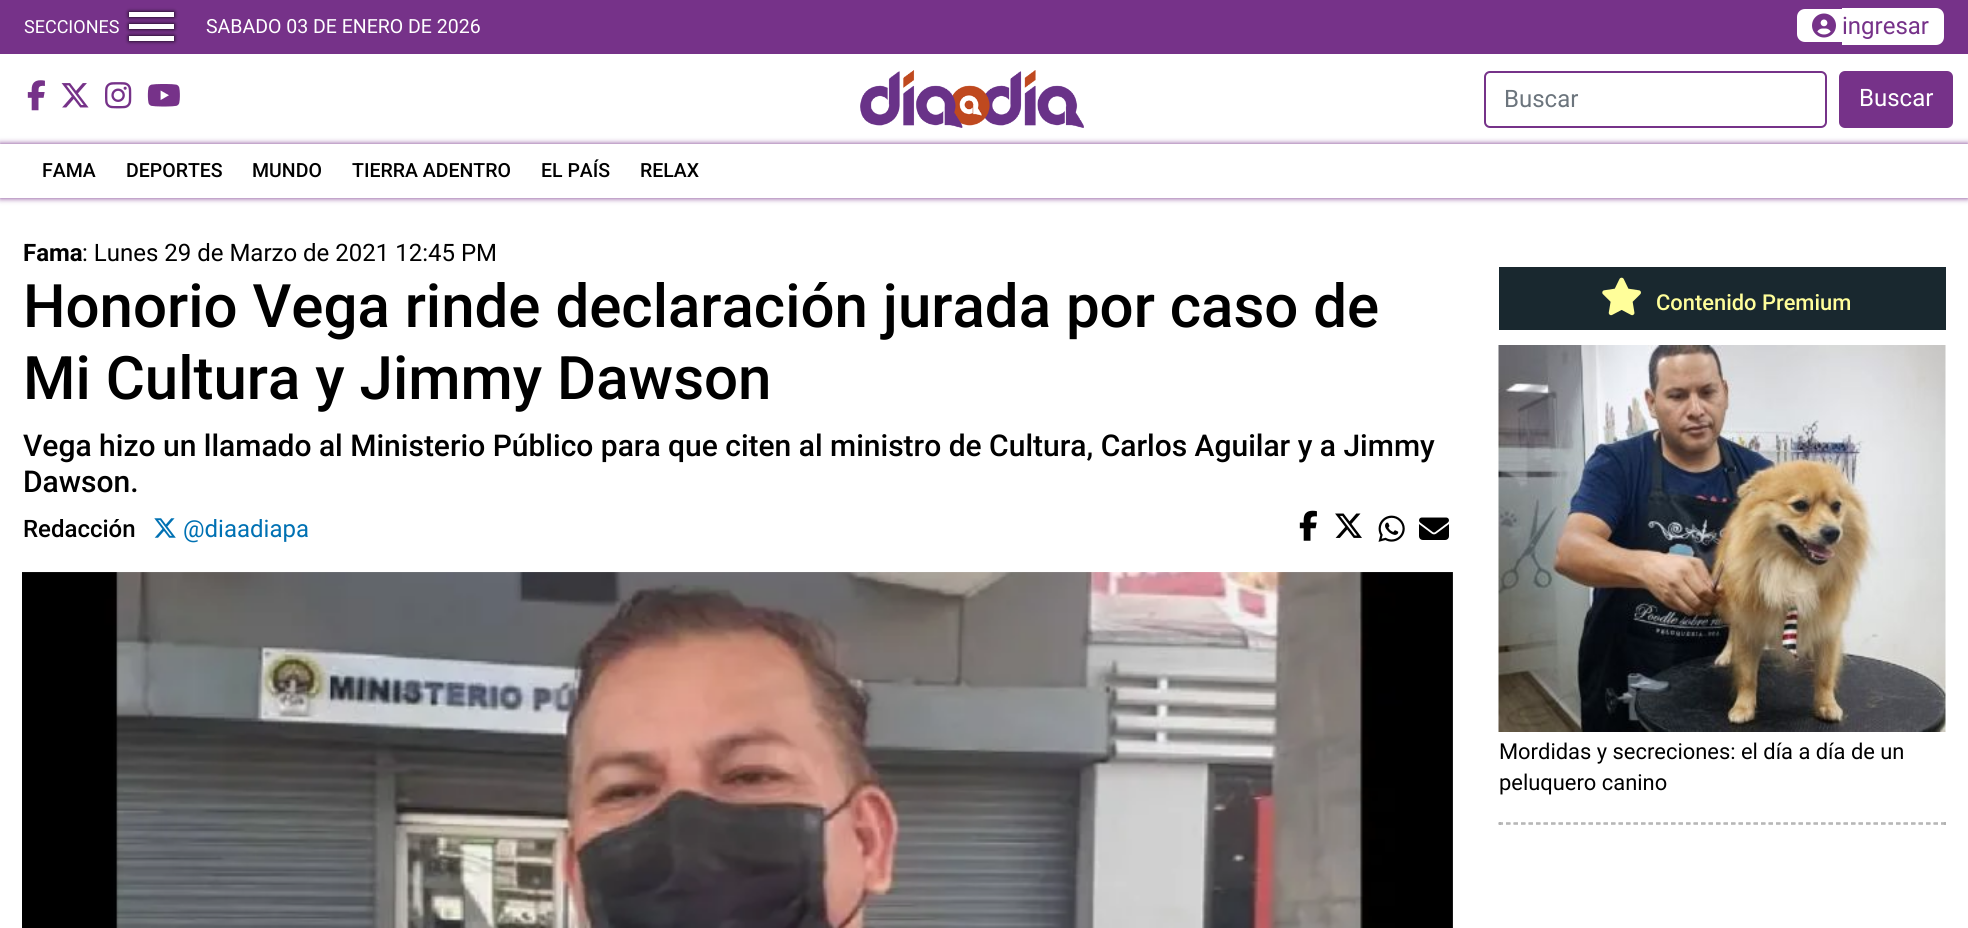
import math
import cairo

surface = cairo.ImageSurface(cairo.FORMAT_RGB24, 1968, 928)
cr = cairo.Context(surface)
options = cairo.FontOptions()
options.set_hint_metrics(cairo.HINT_METRICS_OFF)
options.set_hint_style(cairo.HINT_STYLE_NONE)
cr.set_font_options(options)
cr.set_miter_limit(4)


def rgb(code):
    cr.set_source_rgb(*(v / 255 for v in bytes.fromhex(code[-6:])))


def rrect(x, y, w, h, r):
    cr.new_sub_path()
    for i, (u, v) in enumerate([(x + w - r, y + h - r), (x + r, y + h - r), (x + r, y + r), (x + w - r, y + r)]):
        cr.arc(u, v, r, i * math.pi / 2, (i + 1) * math.pi / 2)
    cr.close_path()


def soft_shadow(x, y, w, h, r, blur, alpha):
    cr.push_group_with_content(cairo.CONTENT_ALPHA)
    cr.set_operator(cairo.OPERATOR_SOURCE)
    for i in range(15, -16, -2):
        e = blur * i / 6
        if min(w, h) + 2 * e > 0:
            cr.set_source_rgba(0, 0, 0, alpha * math.erfc((i - 1) / 8.5) / 2)
            rrect(x - e, y - e, w + 2 * e, h + 2 * e, max(0, min(r + e + blur * .6, min(w, h) / 2 + e)))
            cr.fill()
    cr.mask(cr.pop_group())


def image(path, x, y, w, h):
    cr.save()
    cr.set_source_surface(cairo.ImageSurface.create_from_png(path), x, y)
    cr.rectangle(x, y, w, h)
    cr.fill()
    cr.restore()


rgb("#ffffff")
cr.paint()
rgb("#763289")
cr.rectangle(0, 0, 1968, 54)
cr.fill()
rgb("#000000")
soft_shadow(129, 12, 45, 5, 0, 2, 1)
rgb("#ffffff")
cr.rectangle(129, 12, 45, 5)
cr.fill()
rgb("#000000")
soft_shadow(129, 24, 45, 5, 0, 2, 1)
rgb("#ffffff")
cr.rectangle(129, 24, 45, 5)
cr.fill()
rgb("#000000")
soft_shadow(129, 36, 45, 5, 0, 2, 1)
rgb("#ffffff")
cr.rectangle(129, 36, 45, 5)
cr.fill()
cr.new_path()
cr.move_to(1805, 9)
cr.line_to(1842, 9)
cr.line_to(1842, 42)
cr.line_to(1805, 42)
cr.curve_to(1800.5, 42, 1797, 38.5, 1797, 34)
cr.line_to(1797, 17)
cr.curve_to(1797, 12.5, 1800.5, 9, 1805, 9)
cr.close_path()
cr.fill()
cr.new_path()
cr.move_to(1842, 8)
cr.line_to(1936, 8)
cr.curve_to(1940.5, 8, 1944, 11.5, 1944, 16)
cr.line_to(1944, 37)
cr.curve_to(1944, 41.5, 1940.5, 45, 1936, 45)
cr.line_to(1842, 45)
cr.close_path()
cr.fill()
image("img/1.png", 1812, 13, 24, 25)
image("img/2.png", 27, 80, 18, 31)
image("img/3.png", 61, 83, 28, 25)
image("img/4.png", 105, 82, 27, 27)
image("img/5.png", 147, 84, 33, 23)
image("img/6.png", 860, 70, 224, 58)
rrect(1485, 72, 341, 55, 5)
rgb("#763289")
cr.stroke()
rrect(1840, 72, 112, 55, 5)
cr.fill_preserve()
cr.stroke()
cr.save()
cr.set_fill_rule(cairo.FILL_RULE_EVEN_ODD)
cr.new_path()
cr.move_to(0, 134)
cr.line_to(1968, 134)
cr.line_to(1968, 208)
cr.line_to(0, 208)
cr.close_path()
cr.move_to(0, 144)
cr.line_to(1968, 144)
cr.line_to(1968, 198)
cr.line_to(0, 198)
cr.close_path()
cr.clip()
rgb("#763289")
soft_shadow(0, 144, 1968, 54, 0, 3, 1)
cr.restore()
image("img/7.png", 154, 518, 22, 20)
image("img/8.png", 1299, 510, 18, 31)
image("img/9.png", 1335, 513, 27, 25)
image("img/10.png", 1378, 515, 27, 27)
image("img/11.png", 1419, 517, 30, 23)
image("img/12.png", 22, 572, 1431, 356)
rgb("#19282f")
cr.rectangle(1499, 267, 447, 63)
cr.fill()
image("img/13.png", 1602, 277, 39, 39)
image("img/14.png", 1498, 345, 448, 387)
cr.new_path()
cr.move_to(1498.5, 823)
cr.line_to(1945.5, 823)
rgb("#b2b2b2")
cr.set_line_width(1.5)
cr.set_dash([4.5, 3])
cr.stroke()
cr.rectangle(1944, 822, 2, 3)
cr.fill()
cr.new_path()
cr.move_to(1498.5, 824)
cr.line_to(1945.5, 824)
cr.stroke()
cr.rectangle(1499, 822, 2, 3)
cr.fill()
cr.select_font_face("Roboto")
cr.set_font_size(18)
rgb("#ffffff")
cr.move_to(24, 33)
cr.show_text("SECCIONES")
cr.set_font_size(19.5)
cr.move_to(206, 33)
cr.show_text("SABADO 03 DE ENERO DE 2026")
cr.set_font_size(24)
rgb("#763289")
cr.move_to(1842, 34)
cr.show_text("ingresar")
rgb("#6c757d")
cr.move_to(1504, 107)
cr.show_text("Buscar")
rgb("#ffffff")
cr.move_to(1859, 106)
cr.show_text("Buscar")
cr.select_font_face("Roboto Medium")
cr.set_font_size(19.5)
rgb("#000000")
for x, y, s in [
    (42, 177, "FAMA"),
    (126, 177, "DEPORTES"),
    (252, 177, "MUNDO"),
    (352, 177, "TIERRA ADENTRO"),
    (541, 177, "EL PAÍS"),
    (640, 177, "RELAX"),
]:
    cr.move_to(x, y)
    cr.show_text(s)
cr.select_font_face("Roboto", cairo.FONT_SLANT_NORMAL, cairo.FONT_WEIGHT_BOLD)
cr.set_font_size(24)
cr.move_to(23, 261)
cr.show_text("Fama")
cr.select_font_face("Roboto")
cr.move_to(82, 261)
cr.show_text(": Lunes 29 de Marzo de 2021 12:45 PM")
cr.select_font_face("Roboto Medium")
cr.set_font_size(60)
cr.move_to(23, 327)
cr.show_text("Honorio Vega rinde declaración jurada por caso de")
cr.move_to(23, 399)
cr.show_text("Mi Cultura y Jimmy Dawson")
cr.set_font_size(30)
cr.move_to(23, 456)
cr.show_text("Vega hizo un llamado al Ministerio Público para que citen al ministro de Cultura, Carlos Aguilar y a Jimmy")
cr.move_to(23, 492)
cr.show_text("Dawson.")
cr.set_font_size(24)
cr.move_to(23, 537)
cr.show_text("Redacción")
cr.select_font_face("Roboto")
rgb("#0071b3")
cr.move_to(183, 537)
cr.show_text("@diaadiapa")
cr.select_font_face("Roboto Medium")
cr.set_font_size(21.9)
rgb("#fffe9a")
cr.move_to(1656, 310)
cr.show_text("Contenido Premium")
cr.select_font_face("Roboto")
rgb("#000000")
cr.move_to(1499, 759)
cr.show_text("Mordidas y secreciones: el día a día de un")
cr.move_to(1499, 790)
cr.show_text("peluquero canino")
surface.write_to_png("page.png")
